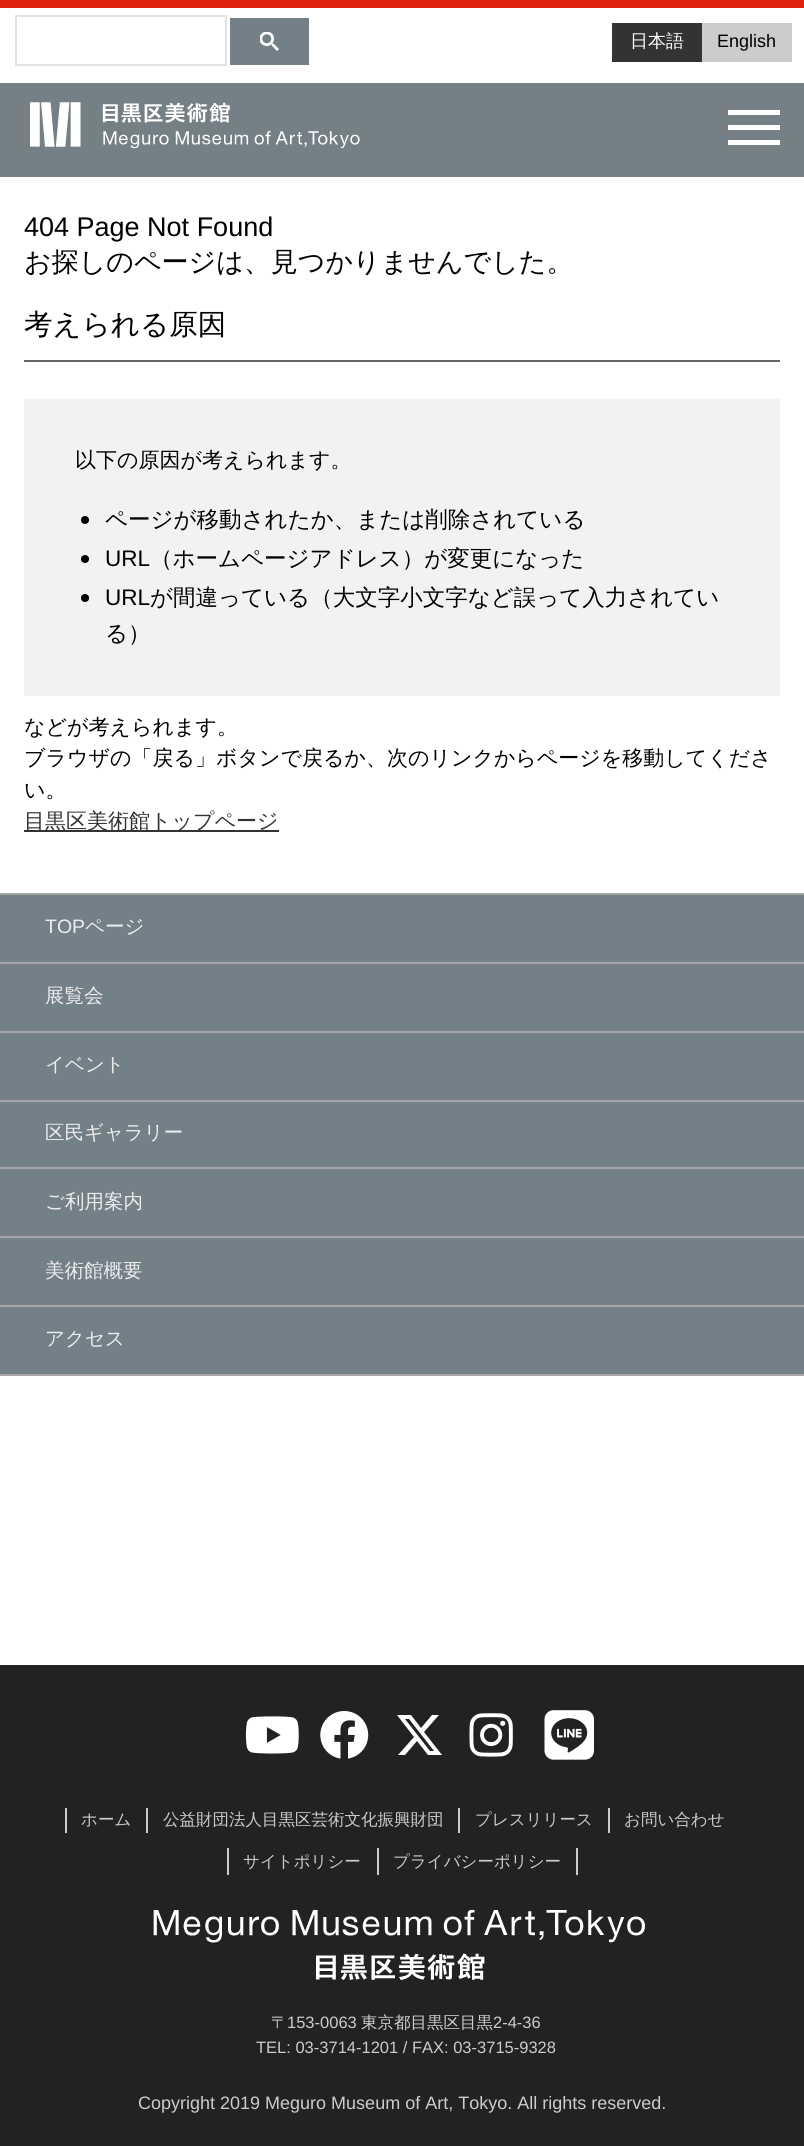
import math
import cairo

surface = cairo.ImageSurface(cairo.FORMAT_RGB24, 804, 2146)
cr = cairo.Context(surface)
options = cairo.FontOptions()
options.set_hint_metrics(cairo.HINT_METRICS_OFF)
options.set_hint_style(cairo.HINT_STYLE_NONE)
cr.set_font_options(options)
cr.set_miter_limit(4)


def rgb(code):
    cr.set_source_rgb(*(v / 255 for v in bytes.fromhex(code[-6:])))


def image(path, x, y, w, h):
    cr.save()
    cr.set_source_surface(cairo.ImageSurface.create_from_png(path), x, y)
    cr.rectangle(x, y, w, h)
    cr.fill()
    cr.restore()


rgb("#ffffff")
cr.paint()
rgb("#de220b")
cr.rectangle(0, 0, 804, 8)
cr.fill()
cr.rectangle(16, 16, 210, 49)
rgb("#dfe1e5")
cr.stroke()
rgb("#748087")
cr.rectangle(230, 18, 79, 47)
cr.fill()
image("img/1.png", 260, 32, 19, 19)
for x, y, w, h, color in [
    (612, 23, 90, 39, "#333333"),
    (702, 23, 90, 39, "#cccccc"),
    (0, 83, 804, 94, "#748085"),
]:
    rgb(color)
    cr.rectangle(x, y, w, h)
    cr.fill()
image("img/2.png", 30, 102, 330, 47)
for x, y, w, h, color in [
    (728, 125, 52, 5, "#ffffff"),
    (728, 110, 52, 5, "#ffffff"),
    (728, 140, 52, 5, "#ffffff"),
    (24, 360, 756, 2, "#666666"),
    (24, 399, 756, 297, "#f2f2f2"),
]:
    rgb(color)
    cr.rectangle(x, y, w, h)
    cr.fill()
rgb("#000000")
cr.arc(85, 520, 4, 0, 2 * math.pi)
cr.fill()
cr.arc(85, 559, 4, 0, 2 * math.pi)
cr.fill()
cr.arc(85, 598, 4, 0, 2 * math.pi)
cr.fill()
for x, y, w, h, color in [
    (24, 830, 255, 2, "#333333"),
    (0, 895, 804, 479, "#748087"),
    (0, 893, 804, 2, "#a5a5a5"),
    (0, 962, 804, 2, "#a5a5a5"),
    (0, 1031, 804, 2, "#a5a5a5"),
    (0, 1100, 804, 2, "#a5a5a5"),
    (0, 1167, 804, 2, "#a5a5a5"),
    (0, 1236, 804, 2, "#a5a5a5"),
    (0, 1305, 804, 2, "#a5a5a5"),
    (0, 1374, 804, 2, "#a5a5a5"),
    (0, 1665, 804, 481, "#222222"),
]:
    rgb(color)
    cr.rectangle(x, y, w, h)
    cr.fill()
image("img/3.png", 245, 1716, 54, 38)
image("img/4.png", 320, 1711, 49, 48)
rgb("#ffffff")
cr.new_path()
cr.move_to(432, 1715)
cr.line_to(439, 1715)
cr.line_to(424, 1732)
cr.line_to(442, 1755)
cr.line_to(428, 1755)
cr.line_to(417, 1741)
cr.line_to(405, 1755)
cr.line_to(398, 1755)
cr.line_to(414, 1737)
cr.line_to(397, 1715)
cr.line_to(411, 1715)
cr.line_to(421, 1728)
cr.close_path()
cr.move_to(430, 1751)
cr.line_to(434, 1751)
cr.line_to(409, 1719)
cr.line_to(405, 1719)
cr.close_path()
cr.fill()
image("img/5.png", 469, 1713, 44, 44)
image("img/6.png", 544, 1710, 50, 50)
for x, y, w, h, color in [
    (65, 1808, 2, 25, "#cccccc"),
    (146, 1808, 2, 25, "#cccccc"),
    (458, 1808, 2, 25, "#cccccc"),
    (608, 1808, 2, 25, "#cccccc"),
    (227, 1848, 2, 27, "#cccccc"),
    (576, 1848, 2, 27, "#cccccc"),
    (377, 1848, 2, 27, "#cccccc"),
]:
    rgb(color)
    cr.rectangle(x, y, w, h)
    cr.fill()
image("img/7.png", 153, 1910, 492, 70)
cr.select_font_face("WenQuanYi Zen Hei Medium")
cr.set_font_size(18)
rgb("#ffffff")
cr.move_to(630, 47)
cr.show_text("日本語")
cr.select_font_face("Liberation Sans")
rgb("#000000")
cr.move_to(717, 47)
cr.show_text("English")
cr.set_font_size(27)
cr.move_to(24, 236)
cr.show_text("404 Page Not Found")
cr.select_font_face("WenQuanYi Zen Hei Medium")
cr.move_to(24, 271)
cr.show_text("お探しのページは、見つかりませんでした。")
cr.set_font_size(28.5)
cr.move_to(24, 334)
cr.show_text("考えられる原因")
cr.set_font_size(21)
cr.move_to(75, 467)
cr.show_text("以下の原因が考えられます。")
cr.set_font_size(22.5)
cr.move_to(105, 527)
cr.show_text("ページが移動されたか、または削除されている")
cr.select_font_face("Liberation Sans")
cr.move_to(105, 566)
cr.show_text("URL")
cr.select_font_face("WenQuanYi Zen Hei Medium")
cr.move_to(150, 566)
cr.show_text("（ホームページアドレス）が変更になった")
cr.select_font_face("Liberation Sans")
cr.move_to(105, 605)
cr.show_text("URL")
cr.select_font_face("WenQuanYi Zen Hei Medium")
cr.move_to(150, 605)
cr.show_text("が間違っている（大文字小文字など誤って入力されてい")
cr.move_to(105, 641)
cr.show_text("る）")
cr.set_font_size(21)
for x, y, s in [
    (24, 734, "などが考えられます。"),
    (24, 765, "ブラウザの「戻る」ボタンで戻るか、次のリンクからページを移動してくださ"),
    (24, 797, "い。"),
]:
    cr.move_to(x, y)
    cr.show_text(s)
rgb("#333333")
cr.move_to(24, 828)
cr.show_text("目黒区美術館トップページ")
cr.select_font_face("Liberation Sans")
cr.set_font_size(19.5)
rgb("#ededed")
cr.move_to(45, 933)
cr.show_text("TOP")
cr.select_font_face("WenQuanYi Zen Hei Medium")
for x, y, s in [
    (85, 933, "ページ"),
    (45, 1002, "展覧会"),
    (45, 1071, "イベント"),
    (45, 1139, "区民ギャラリー"),
    (45, 1208, "ご利用案内"),
    (45, 1277, "美術館概要"),
    (45, 1345, "アクセス"),
]:
    cr.move_to(x, y)
    cr.show_text(s)
cr.set_font_size(16.5)
rgb("#cccccc")
for x, y, s in [
    (81, 1825, "ホーム"),
    (163, 1825, "公益財団法人目黒区芸術文化振興財団"),
    (475, 1825, "プレスリリース"),
    (624, 1825, "お問い合わせ"),
    (243, 1867, "サイトポリシー"),
    (393, 1867, "プライバシーポリシー"),
    (271, 2028, "〒"),
]:
    cr.move_to(x, y)
    cr.show_text(s)
cr.select_font_face("Liberation Sans")
cr.move_to(287, 2028)
cr.show_text("153-0063")
cr.select_font_face("WenQuanYi Zen Hei Medium")
cr.move_to(361, 2028)
cr.show_text("東京都目黒区目黒")
cr.select_font_face("Liberation Sans")
cr.move_to(493, 2028)
cr.show_text("2-4-36")
cr.move_to(256, 2053)
cr.show_text("TEL: 03-3714-1201 / FAX: 03-3715-9328")
cr.set_font_size(18)
cr.move_to(138, 2109)
cr.show_text("Copyright 2019 Meguro Museum of Art, Tokyo. All rights reserved.")
surface.write_to_png("page.png")
